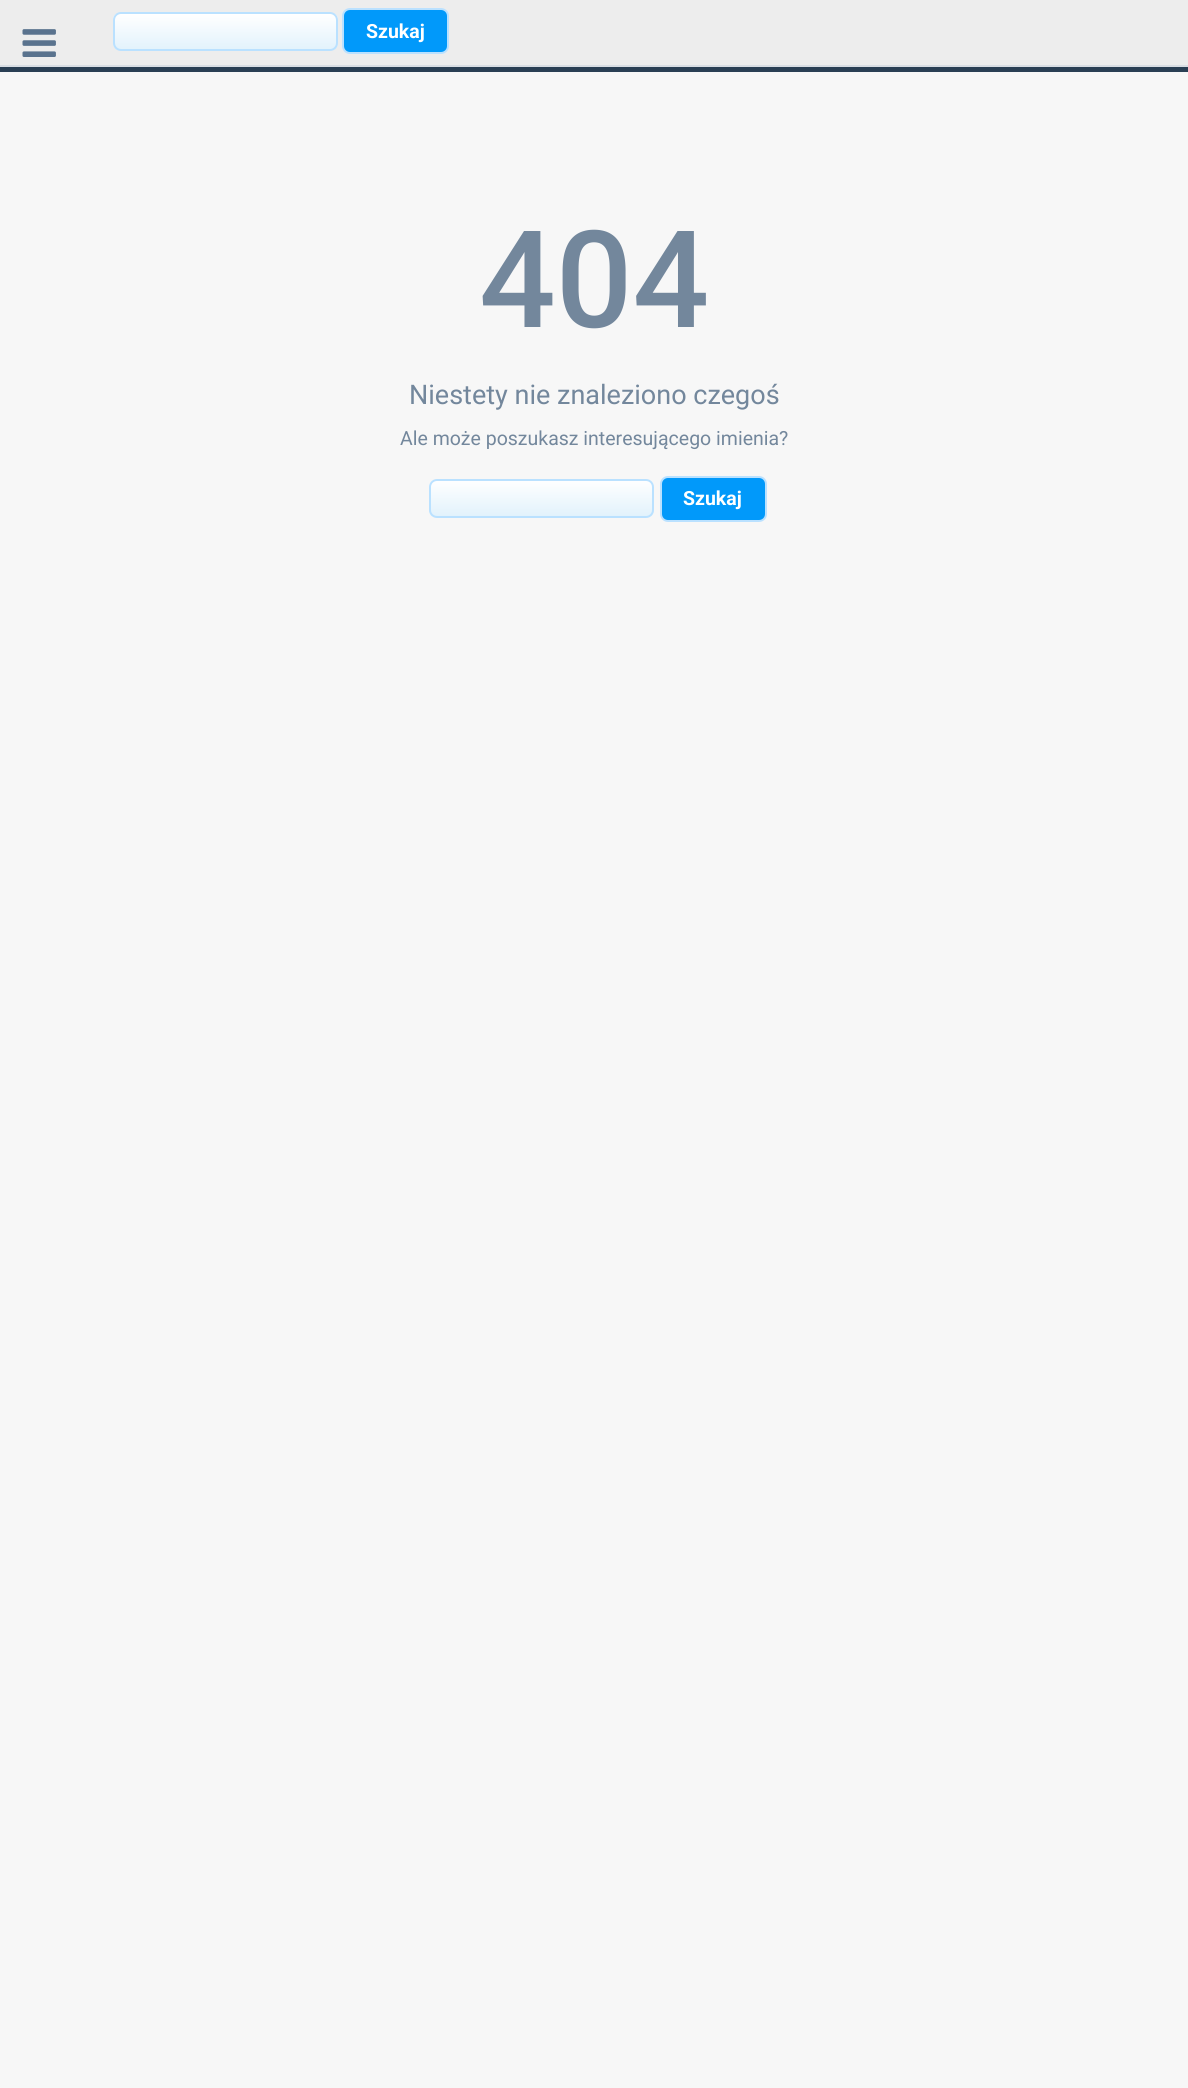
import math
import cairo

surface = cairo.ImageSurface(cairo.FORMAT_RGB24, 1188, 2088)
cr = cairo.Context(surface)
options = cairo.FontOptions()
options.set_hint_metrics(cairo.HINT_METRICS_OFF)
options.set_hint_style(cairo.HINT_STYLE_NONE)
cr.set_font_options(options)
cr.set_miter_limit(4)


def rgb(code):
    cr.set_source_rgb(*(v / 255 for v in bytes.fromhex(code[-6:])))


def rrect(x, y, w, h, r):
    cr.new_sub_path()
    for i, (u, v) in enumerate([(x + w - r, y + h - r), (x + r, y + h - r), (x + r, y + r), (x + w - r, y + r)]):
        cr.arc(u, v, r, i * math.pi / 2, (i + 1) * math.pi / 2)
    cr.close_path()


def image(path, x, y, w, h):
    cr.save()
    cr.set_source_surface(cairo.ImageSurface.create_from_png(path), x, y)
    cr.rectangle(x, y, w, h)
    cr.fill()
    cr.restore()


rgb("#2a3f54")
cr.paint()
rgb("#ededed")
cr.rectangle(0, 0, 1188, 65)
cr.fill()
rgb("#d9dee4")
cr.rectangle(0, 65, 1188, 2)
cr.fill()
image("img/1.png", 22, 29, 34, 28)
cr.save()
rrect(113, 12, 225, 39, 8)
cr.clip()
gradient = cairo.LinearGradient(114, 14, 114, 50)
gradient.add_color_stop_rgba(0, 1, 1, 1, 1)
gradient.add_color_stop_rgba(1, 0.886, 0.949, 0.988, 1)
cr.set_source(gradient)
cr.rectangle(113, 14, 225, 36)
cr.fill()
cr.restore()
rrect(114, 13, 223, 37, 7)
rgb("#bae1ff")
cr.stroke()
rgb("#0199fa")
rrect(343, 9, 105, 44, 7)
cr.fill_preserve()
rgb("#bae1ff")
cr.stroke()
rgb("#f7f7f7")
cr.rectangle(0, 72, 1188, 2016)
cr.fill()
cr.save()
rrect(429, 479, 225, 39, 8)
cr.clip()
gradient = cairo.LinearGradient(431, 480, 431, 516)
gradient.add_color_stop_rgba(0, 1, 1, 1, 1)
gradient.add_color_stop_rgba(1, 0.886, 0.949, 0.988, 1)
cr.set_source(gradient)
cr.rectangle(429, 480, 225, 36)
cr.fill()
cr.restore()
rrect(430, 480, 223, 37, 7)
rgb("#bae1ff")
cr.stroke()
rgb("#0199fa")
rrect(661, 477, 105, 44, 7)
cr.fill_preserve()
rgb("#bae1ff")
cr.stroke()
cr.select_font_face("Roboto", cairo.FONT_SLANT_NORMAL, cairo.FONT_WEIGHT_BOLD)
cr.set_font_size(19.5)
rgb("#ffffff")
cr.move_to(366, 38)
cr.show_text("Szukaj")
cr.select_font_face("Roboto Medium")
cr.set_font_size(135)
rgb("#73879c")
cr.move_to(479, 327)
cr.show_text("404")
cr.select_font_face("Roboto")
cr.set_font_size(27)
cr.move_to(409, 404)
cr.show_text("Niestety nie znaleziono czegoś")
cr.set_font_size(19.5)
cr.move_to(400, 445)
cr.show_text("Ale może poszukasz interesującego imienia?")
cr.select_font_face("Roboto", cairo.FONT_SLANT_NORMAL, cairo.FONT_WEIGHT_BOLD)
rgb("#ffffff")
cr.move_to(683, 505)
cr.show_text("Szukaj")
surface.write_to_png("page.png")
